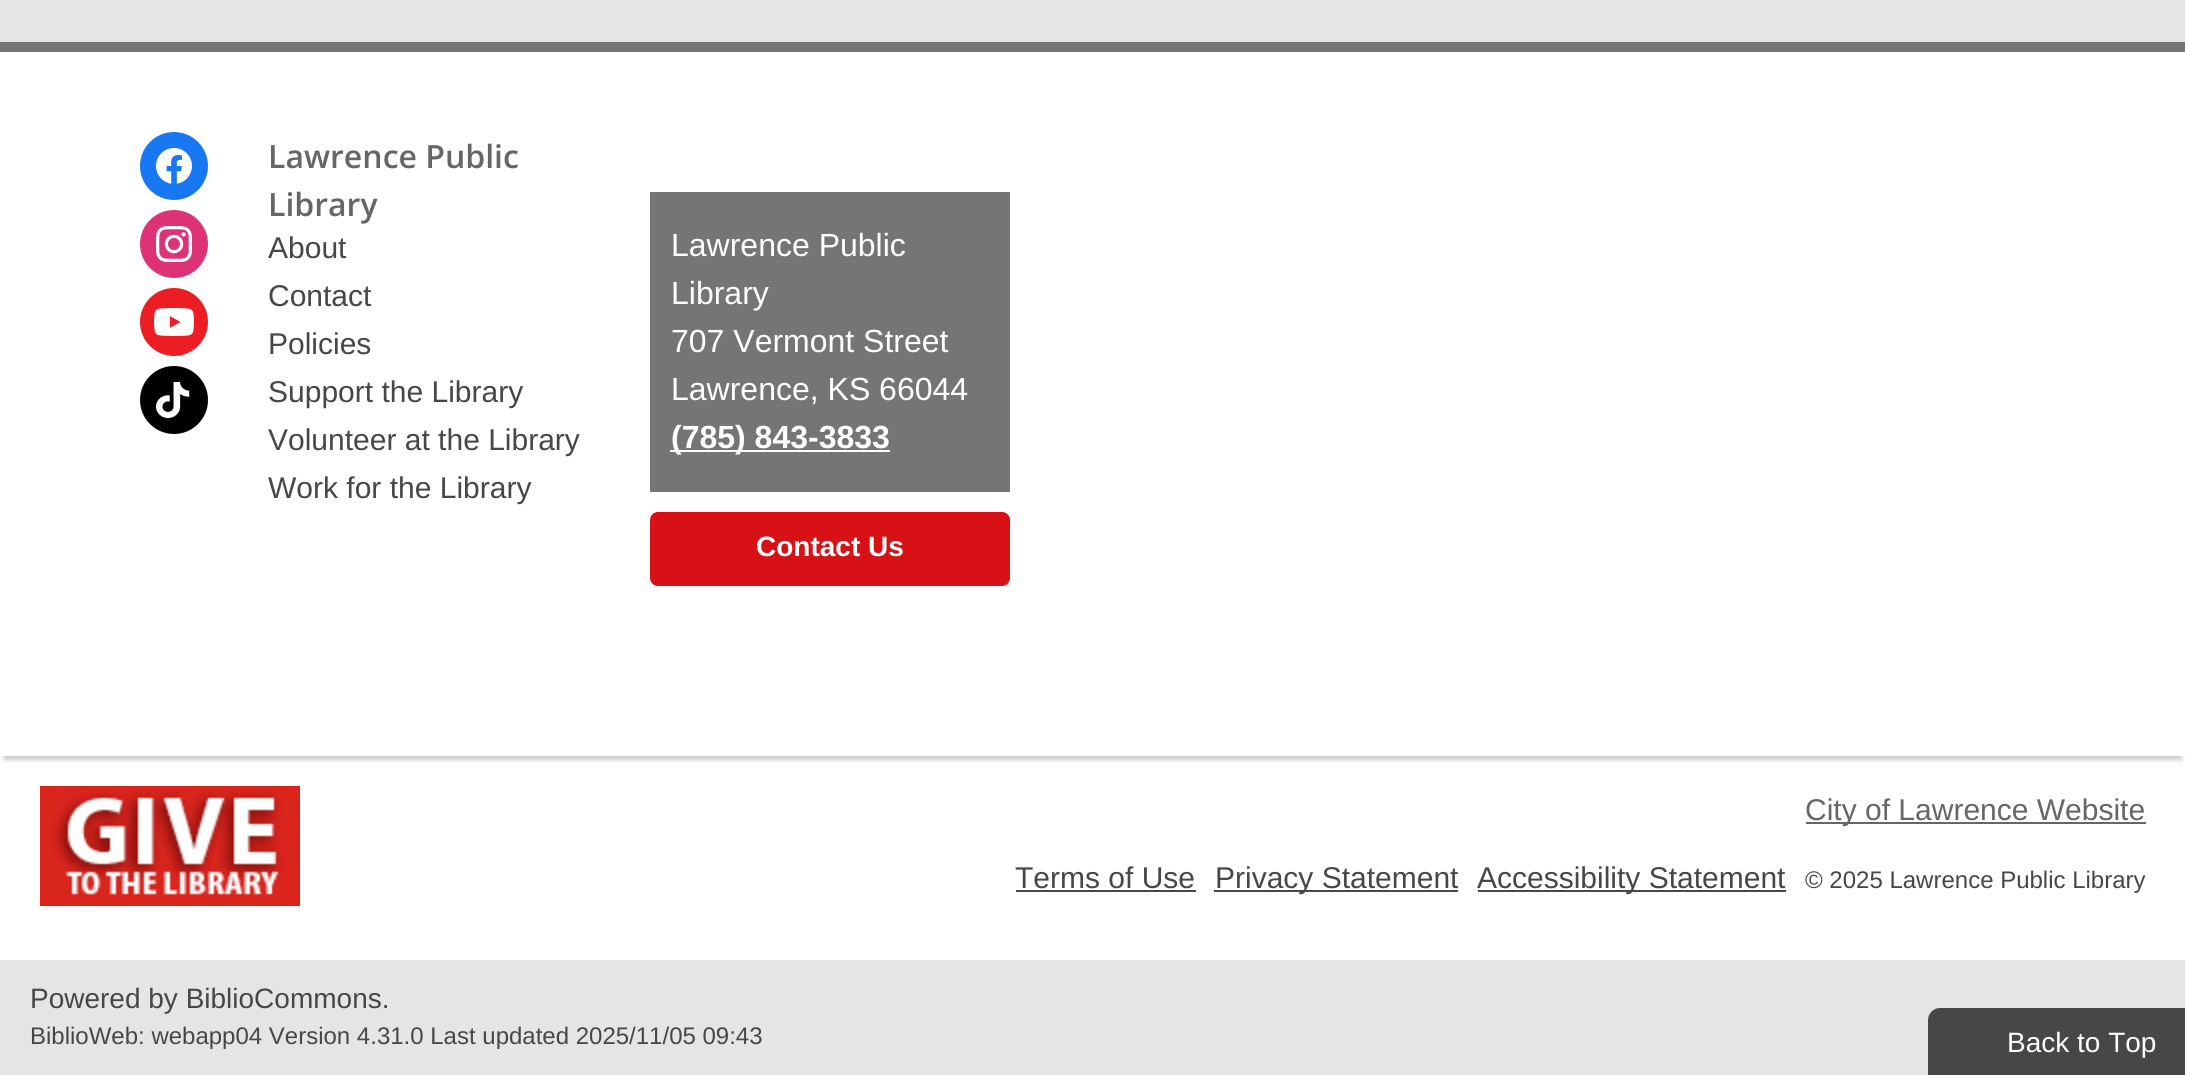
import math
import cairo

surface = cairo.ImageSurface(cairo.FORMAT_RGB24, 2185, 1075)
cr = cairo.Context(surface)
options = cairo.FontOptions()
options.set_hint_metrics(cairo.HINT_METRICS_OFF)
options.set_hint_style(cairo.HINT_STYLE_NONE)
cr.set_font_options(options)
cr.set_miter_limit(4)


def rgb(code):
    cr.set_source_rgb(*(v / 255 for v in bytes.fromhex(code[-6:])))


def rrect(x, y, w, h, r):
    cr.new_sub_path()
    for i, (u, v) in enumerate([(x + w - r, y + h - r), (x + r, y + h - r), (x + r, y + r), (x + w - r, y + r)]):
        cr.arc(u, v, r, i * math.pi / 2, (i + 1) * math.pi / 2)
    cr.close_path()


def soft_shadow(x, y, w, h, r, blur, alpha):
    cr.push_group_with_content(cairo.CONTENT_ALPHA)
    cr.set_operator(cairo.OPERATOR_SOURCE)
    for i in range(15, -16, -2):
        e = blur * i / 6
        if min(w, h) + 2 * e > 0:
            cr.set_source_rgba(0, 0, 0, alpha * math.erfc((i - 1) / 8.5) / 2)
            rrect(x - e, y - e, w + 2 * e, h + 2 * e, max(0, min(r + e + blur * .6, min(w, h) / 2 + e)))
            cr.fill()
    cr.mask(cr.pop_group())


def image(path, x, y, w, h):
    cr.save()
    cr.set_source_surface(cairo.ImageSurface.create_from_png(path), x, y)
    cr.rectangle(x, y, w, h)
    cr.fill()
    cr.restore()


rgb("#e5e5e5")
cr.paint()
rgb("#ffffff")
cr.rectangle(0, 52, 2185, 908)
cr.fill()
cr.save()
cr.rectangle(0, 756, 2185, 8)
cr.clip()
rgb("#cccccc")
soft_shadow(4, 54, 2178, 706, 0, 2, 1)
cr.restore()
rgb("#757575")
cr.rectangle(0, 42, 2185, 10)
cr.fill()
rgb("#1877f2")
cr.arc(174, 166, 34, 0, 2 * math.pi)
cr.fill()
image("img/1.png", 156, 148, 36, 36)
rgb("#dd3275")
cr.arc(174, 244, 34, 0, 2 * math.pi)
cr.fill()
image("img/2.png", 156, 226, 36, 36)
rgb("#ed1d24")
cr.arc(174, 322, 34, 0, 2 * math.pi)
cr.fill()
image("img/3.png", 154, 308, 40, 28)
rgb("#000000")
cr.arc(174, 400, 34, 0, 2 * math.pi)
cr.fill()
image("img/4.png", 156, 382, 34, 36)
rgb("#757575")
cr.rectangle(650, 192, 360, 300)
cr.fill()
rgb("#ffffff")
cr.rectangle(670, 450, 220, 2)
cr.fill()
rgb("#d81116")
rrect(650, 512, 360, 74, 8)
cr.fill()
image("img/5.png", 40, 786, 260, 120)
for x, y, w, h, color in [
    (1806, 822, 340, 2, "#666666"),
    (1016, 890, 180, 2, "#474747"),
    (1214, 890, 244, 2, "#474747"),
    (1478, 890, 308, 2, "#474747"),
]:
    rgb(color)
    cr.rectangle(x, y, w, h)
    cr.fill()
cr.new_path()
cr.move_to(1940, 1008)
cr.line_to(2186, 1008)
cr.line_to(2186, 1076)
cr.line_to(1928, 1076)
cr.line_to(1928, 1020)
cr.curve_to(1928, 1013.5, 1933.5, 1008, 1940, 1008)
cr.close_path()
cr.fill()
cr.select_font_face("Open Sans SemiBold")
cr.set_font_size(32)
rgb("#666666")
cr.move_to(268, 168)
cr.show_text("Lawrence Public")
cr.move_to(268, 216)
cr.show_text("Library")
cr.select_font_face("Liberation Sans")
cr.set_font_size(30)
rgb("#474747")
for x, y, s in [
    (268, 258, "About"),
    (268, 306, "Contact"),
    (268, 354, "Policies"),
    (268, 402, "Support the Library"),
    (268, 450, "Volunteer at the Library"),
    (268, 498, "Work for the Library"),
]:
    cr.move_to(x, y)
    cr.show_text(s)
cr.set_font_size(32)
rgb("#ffffff")
for x, y, s in [
    (671, 256, "Lawrence Public"),
    (671, 304, "Library"),
    (671, 352, "707 Vermont Street"),
    (671, 400, "Lawrence, KS 66044"),
]:
    cr.move_to(x, y)
    cr.show_text(s)
cr.select_font_face("Liberation Sans", cairo.FONT_SLANT_NORMAL, cairo.FONT_WEIGHT_BOLD)
cr.move_to(671, 448)
cr.show_text("(785) 843-3833")
cr.set_font_size(28)
cr.move_to(756, 556)
cr.show_text("Contact Us")
cr.select_font_face("Liberation Sans")
cr.set_font_size(30)
rgb("#666666")
cr.move_to(1805, 820)
cr.show_text("City of Lawrence Website")
rgb("#474747")
for x, y, s in [
    (1015, 888, "Terms of Use"),
    (1215, 888, "Privacy Statement"),
    (1477, 888, "Accessibility Statement"),
]:
    cr.move_to(x, y)
    cr.show_text(s)
cr.set_font_size(24)
cr.move_to(1805, 888)
cr.show_text("© 2025 Lawrence Public Library")
cr.set_font_size(28)
cr.move_to(30, 1008)
cr.show_text("Powered by BiblioCommons.")
cr.set_font_size(24)
cr.move_to(30, 1044)
cr.show_text("BiblioWeb: webapp04 Version 4.31.0 Last updated 2025/11/05 09:43")
cr.set_font_size(28)
rgb("#ffffff")
cr.move_to(2007, 1052)
cr.show_text("Back to Top")
surface.write_to_png("page.png")
